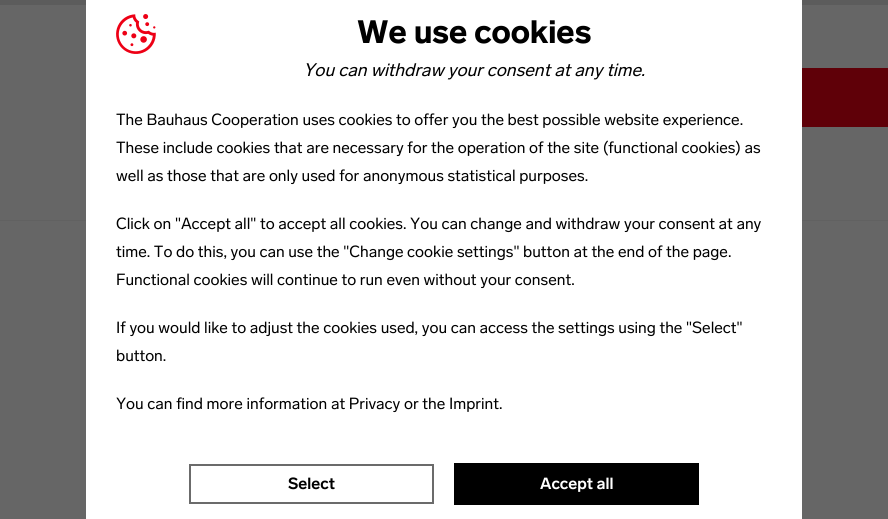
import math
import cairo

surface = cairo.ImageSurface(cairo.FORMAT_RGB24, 888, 519)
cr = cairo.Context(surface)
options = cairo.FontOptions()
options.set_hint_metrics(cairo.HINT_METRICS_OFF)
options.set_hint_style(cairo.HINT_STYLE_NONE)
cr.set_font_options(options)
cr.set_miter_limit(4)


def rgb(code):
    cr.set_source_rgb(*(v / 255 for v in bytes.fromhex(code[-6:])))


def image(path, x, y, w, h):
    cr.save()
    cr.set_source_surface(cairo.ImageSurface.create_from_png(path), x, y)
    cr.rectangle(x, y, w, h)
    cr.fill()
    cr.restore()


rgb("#666666")
cr.paint()
for x, y, w, h, color in [
    (0, 0, 888, 5, "#5c5c5c"),
    (0, 220, 888, 1, "#616161"),
    (86, 0, 716, 519, "#ffffff"),
]:
    rgb(color)
    cr.rectangle(x, y, w, h)
    cr.fill()
gradient = cairo.RadialGradient(0, 0, 0, 0, 0, 1)
gradient.set_matrix(cairo.Matrix(1 / 358, 0, 0, 1 / 14, -1 * 444 / 358, -1 * 418 / 14))
gradient.add_color_stop_rgba(0, 0.8, 0.8, 0.8, 1)
gradient.add_color_stop_rgba(1, 1, 1, 1, 1)
cr.set_source(gradient)
cr.rectangle(327, 405, 234, 1)
cr.fill()
gradient = cairo.LinearGradient(444, 378, 444, 418)
gradient.add_color_stop_rgba(0, 1, 1, 1, 0)
gradient.add_color_stop_rgba(0.7, 1, 1, 1, 1)
cr.set_source(gradient)
cr.rectangle(327, 405, 234, 1)
cr.fill()
image("img/1.png", 116, 14, 40, 40)
cr.rectangle(190, 465, 243, 38)
rgb("#6b6b6b")
cr.stroke()
rgb("#000000")
cr.rectangle(454, 463, 245, 42)
cr.fill()
rgb("#5f0008")
cr.rectangle(802, 68, 86, 59)
cr.fill()
cr.select_font_face("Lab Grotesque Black")
cr.set_font_size(32)
rgb("#000000")
cr.move_to(357, 43)
cr.show_text("We use cookies")
cr.select_font_face("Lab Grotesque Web", cairo.FONT_SLANT_ITALIC)
cr.set_font_size(18)
cr.move_to(303, 76)
cr.show_text("You can withdraw your consent at any time.")
cr.select_font_face("Lab Grotesque Web")
cr.set_font_size(16)
for x, y, s in [
    (116, 125, "The Bauhaus Cooperation uses cookies to offer you the best possible website experience."),
    (116, 153, "These include cookies that are necessary for the operation of the site (functional cookies) as"),
    (116, 181, "well as those that are only used for anonymous statistical purposes."),
    (116, 229, "Click on \"Accept all\" to accept all cookies. You can change and withdraw your consent at any"),
    (116, 257, "time. To do this, you can use the \"Change cookie settings\" button at the end of the page."),
    (116, 285, "Functional cookies will continue to run even without your consent."),
    (116, 333, "If you would like to adjust the cookies used, you can access the settings using the \"Select\""),
    (116, 361, "button."),
    (116, 409, "You can find more information at Privacy or the Imprint."),
]:
    cr.move_to(x, y)
    cr.show_text(s)
cr.select_font_face("Lab Grotesque Web", cairo.FONT_SLANT_NORMAL, cairo.FONT_WEIGHT_BOLD)
cr.move_to(288, 489)
cr.show_text("Select")
rgb("#ffffff")
cr.move_to(540, 489)
cr.show_text("Accept all")
surface.write_to_png("page.png")
